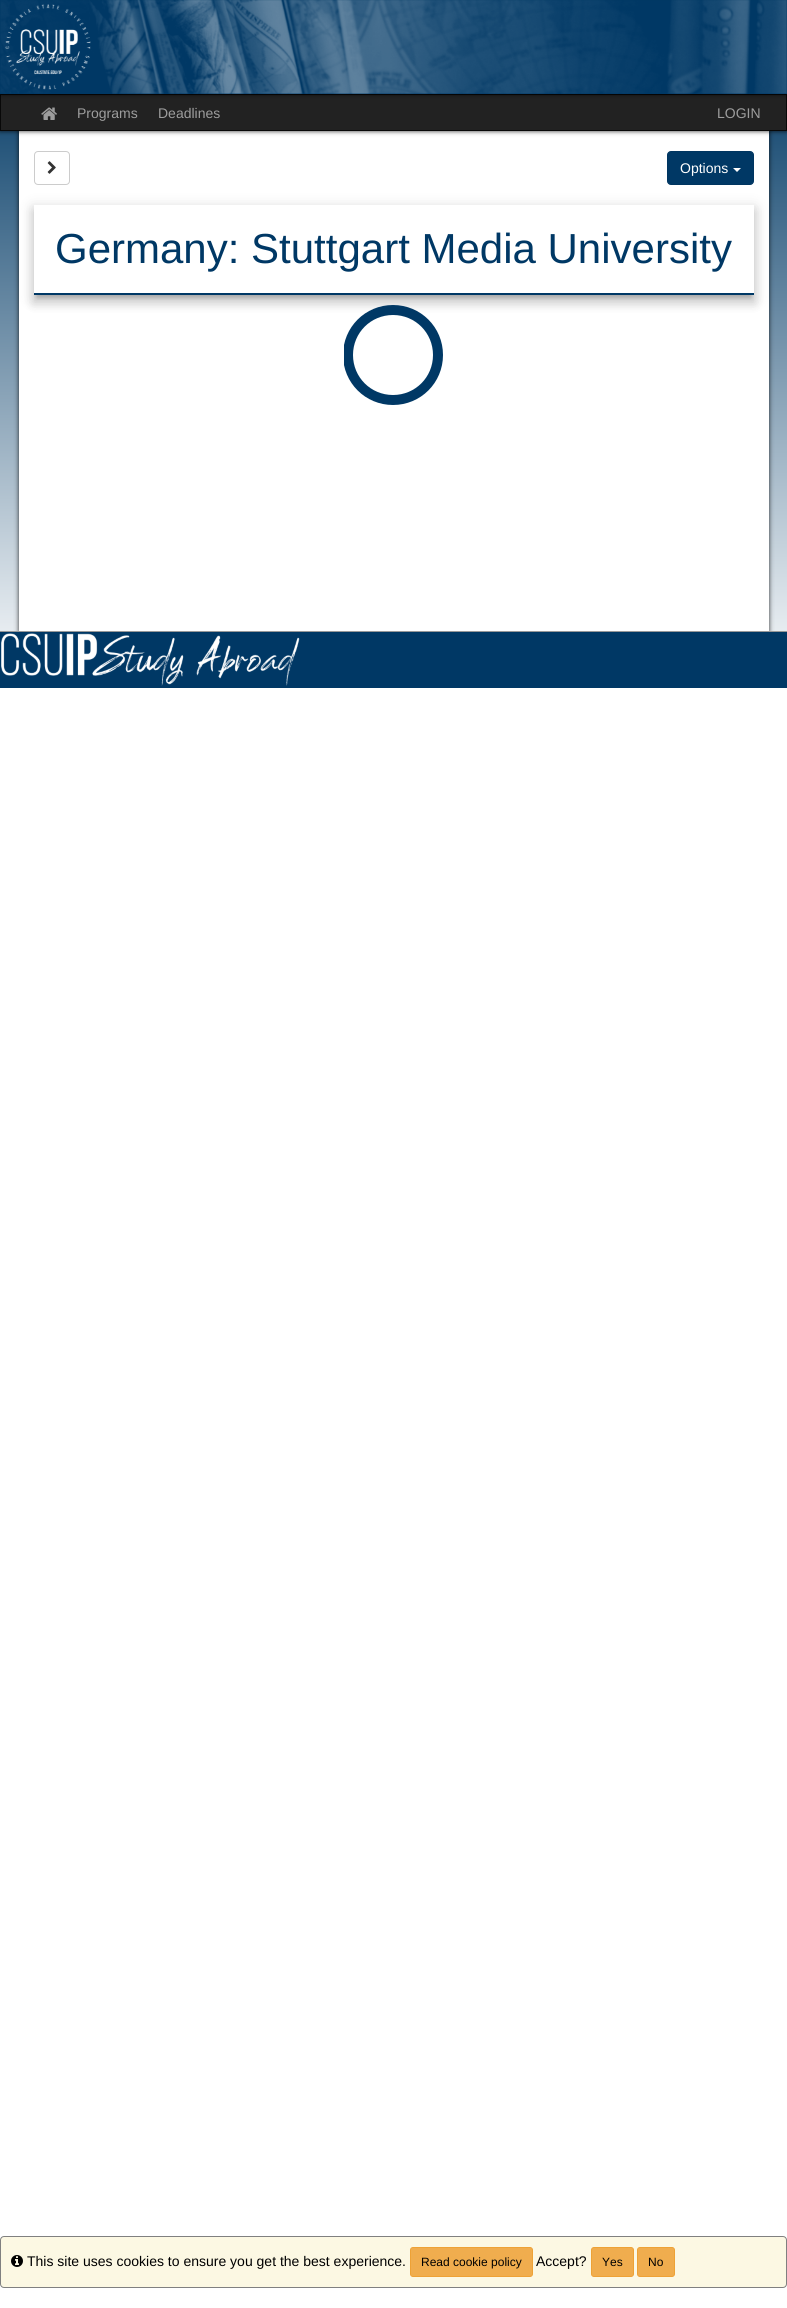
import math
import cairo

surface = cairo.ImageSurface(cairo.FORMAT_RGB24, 787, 2308)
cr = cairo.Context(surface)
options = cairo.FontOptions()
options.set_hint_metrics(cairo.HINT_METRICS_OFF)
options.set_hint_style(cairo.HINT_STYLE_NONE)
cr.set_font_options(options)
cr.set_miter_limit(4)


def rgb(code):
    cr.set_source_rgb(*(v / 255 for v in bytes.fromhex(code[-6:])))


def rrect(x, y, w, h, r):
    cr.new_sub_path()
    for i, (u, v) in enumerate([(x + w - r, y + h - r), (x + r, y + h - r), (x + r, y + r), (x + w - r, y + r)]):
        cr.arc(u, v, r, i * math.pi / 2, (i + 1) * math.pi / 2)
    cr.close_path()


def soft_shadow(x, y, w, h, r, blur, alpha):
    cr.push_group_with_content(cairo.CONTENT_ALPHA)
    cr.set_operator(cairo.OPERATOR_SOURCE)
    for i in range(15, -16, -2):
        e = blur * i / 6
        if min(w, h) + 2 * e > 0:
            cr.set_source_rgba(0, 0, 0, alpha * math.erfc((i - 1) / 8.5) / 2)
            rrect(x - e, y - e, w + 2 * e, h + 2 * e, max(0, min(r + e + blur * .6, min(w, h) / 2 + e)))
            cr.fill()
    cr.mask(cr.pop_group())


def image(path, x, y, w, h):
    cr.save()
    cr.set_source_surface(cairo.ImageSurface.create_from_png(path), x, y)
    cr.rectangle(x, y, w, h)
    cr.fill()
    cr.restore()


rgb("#ffffff")
cr.paint()
gradient = cairo.LinearGradient(393, 0, 394, 2308)
gradient.add_color_stop_rgba(0.02, 0, 0.22, 0.392, 1)
gradient.add_color_stop_rgba(0.3, 1, 1, 1, 1)
cr.set_source(gradient)
cr.rectangle(0, 131, 787, 555)
cr.fill()
rgb("#000000")
soft_shadow(19, 131, 750, 500, 0, 2.5, 0.8)
rgb("#ffffff")
cr.rectangle(19, 131, 750, 500)
cr.fill()
rgb("#000000")
soft_shadow(0, 94, 787, 37, 0, 2.5, 0.8)
rgb("#222222")
cr.rectangle(0.5, 94.5, 786, 36)
cr.fill_preserve()
rgb("#080808")
cr.set_line_width(1)
cr.stroke()
rgb("#000000")
soft_shadow(0, 0, 787, 94, 0, 2.5, 0.8)
rgb("#003865")
cr.rectangle(0, 0, 787, 94)
cr.fill()
image("img/1.png", 0, 0, 787, 94)
image("img/2.png", 41, 107, 16, 13)
cr.save()
cr.set_fill_rule(cairo.FILL_RULE_EVEN_ODD)
cr.new_path()
cr.move_to(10, 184)
cr.line_to(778, 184)
cr.line_to(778, 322)
cr.line_to(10, 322)
cr.close_path()
cr.move_to(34, 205)
cr.line_to(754, 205)
cr.line_to(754, 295)
cr.line_to(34, 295)
cr.close_path()
cr.clip()
rgb("#000000")
soft_shadow(32, 206, 724, 94, 0, 7, 0.12)
cr.restore()
rrect(34.5, 151.5, 35, 33, 3.5)
rgb("#cccccc")
cr.stroke()
image("img/3.png", 47, 161, 9, 13)
rgb("#003865")
rrect(667.5, 151.5, 86, 33, 3.5)
cr.fill_preserve()
rgb("#003560")
cr.stroke()
rgb("#ffffff")
cr.new_path()
cr.move_to(733, 168)
cr.line_to(741, 168)
cr.line_to(737, 172)
cr.close_path()
cr.fill()
cr.save()
cr.set_fill_rule(cairo.FILL_RULE_EVEN_ODD)
cr.new_path()
cr.move_to(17, 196)
cr.line_to(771, 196)
cr.line_to(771, 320)
cr.line_to(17, 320)
cr.close_path()
cr.move_to(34, 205)
cr.line_to(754, 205)
cr.line_to(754, 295)
cr.line_to(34, 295)
cr.close_path()
cr.clip()
rgb("#000000")
soft_shadow(33, 212, 722, 92, 0, 5, 0.14)
cr.restore()
cr.save()
cr.rectangle(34, 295, 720, 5)
cr.clip()
rgb("#000000")
soft_shadow(37, 213, 714, 84, 0, 2.5, 0.2)
cr.restore()
rgb("#003865")
cr.rectangle(34, 293, 720, 2)
cr.fill()
cr.save()
cr.rectangle(344, 305, 100, 100)
cr.clip()
cr.new_path()
cr.move_to(348, 355)
cr.curve_to(348, 330, 368, 310, 393, 310)
cr.curve_to(418, 310, 438, 330, 438, 355)
cr.curve_to(438, 380, 418, 400, 393, 400)
cr.curve_to(368, 400, 348, 380, 348, 355)
cr.set_line_width(10)
cr.stroke()
cr.restore()
cr.rectangle(0, 632, 787, 56)
cr.fill()
rgb("#999999")
cr.rectangle(0, 631, 787, 1)
cr.fill()
image("img/4.png", 1, 633, 299, 53)
rgb("#fcf8e3")
rrect(0.5, 2236.5, 786, 51, 3.5)
cr.fill_preserve()
rgb("#808080")
cr.stroke()
image("img/5.png", 11, 2255, 12, 12)
rgb("#f0ad4e")
rrect(410.5, 2247.5, 122, 29, 2.5)
cr.fill_preserve()
rgb("#eea236")
cr.stroke()
rgb("#f0ad4e")
rrect(591.5, 2247.5, 42, 29, 2.5)
cr.fill_preserve()
rgb("#eea236")
cr.stroke()
rgb("#f0ad4e")
rrect(637.5, 2247.5, 37, 29, 2.5)
cr.fill_preserve()
rgb("#eea236")
cr.stroke()
cr.select_font_face("Liberation Sans")
cr.set_font_size(14)
rgb("#9d9d9d")
for x, y, s in [
    (77, 118, "Programs"),
    (158, 118, "Deadlines"),
    (717, 118, "LOGIN"),
]:
    cr.move_to(x, y)
    cr.show_text(s)
rgb("#ffffff")
cr.move_to(680, 173)
cr.show_text("Options")
cr.set_font_size(42)
rgb("#003865")
cr.move_to(55, 263)
cr.show_text("Germany: Stuttgart Media University")
cr.set_font_size(14)
rgb("#000000")
cr.move_to(27, 2266)
cr.show_text("This site uses cookies to ensure you get the best experience.")
cr.set_font_size(12)
cr.move_to(421, 2266)
cr.show_text("Read cookie policy")
cr.set_font_size(14)
cr.move_to(536, 2266)
cr.show_text("Accept?")
cr.set_font_size(12)
cr.move_to(602, 2266)
cr.show_text("Yes")
cr.move_to(648, 2266)
cr.show_text("No")
surface.write_to_png("page.png")
